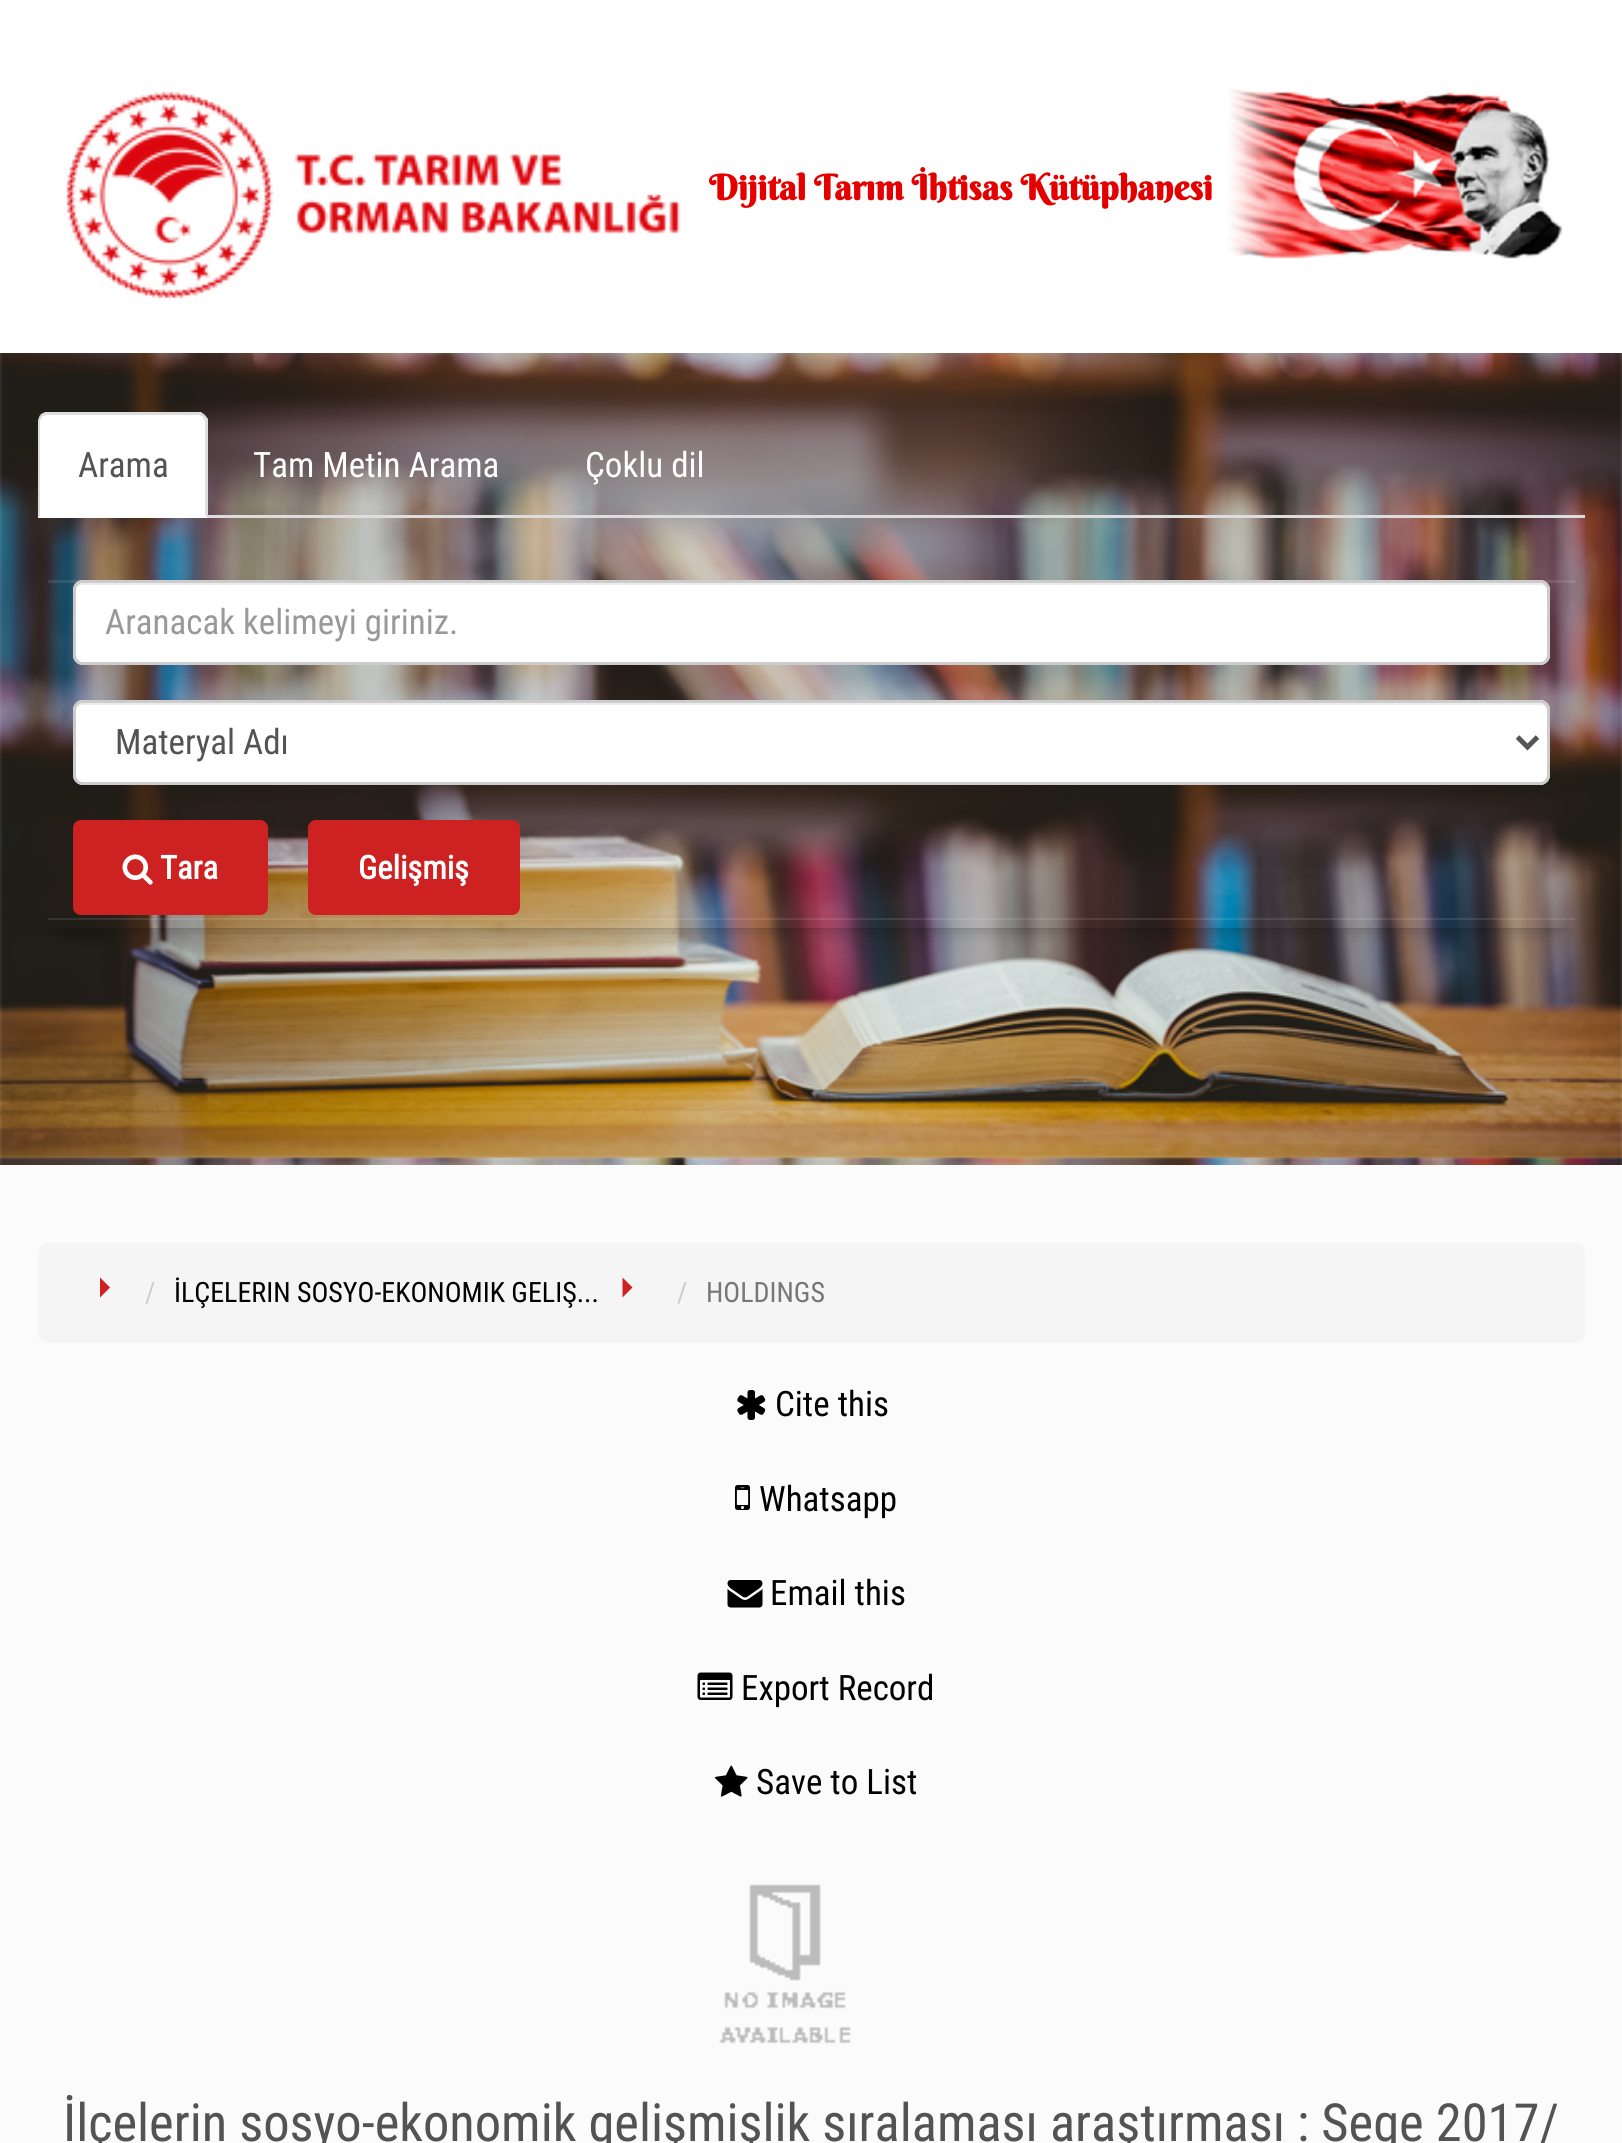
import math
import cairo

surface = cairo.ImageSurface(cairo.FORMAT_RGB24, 1622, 2143)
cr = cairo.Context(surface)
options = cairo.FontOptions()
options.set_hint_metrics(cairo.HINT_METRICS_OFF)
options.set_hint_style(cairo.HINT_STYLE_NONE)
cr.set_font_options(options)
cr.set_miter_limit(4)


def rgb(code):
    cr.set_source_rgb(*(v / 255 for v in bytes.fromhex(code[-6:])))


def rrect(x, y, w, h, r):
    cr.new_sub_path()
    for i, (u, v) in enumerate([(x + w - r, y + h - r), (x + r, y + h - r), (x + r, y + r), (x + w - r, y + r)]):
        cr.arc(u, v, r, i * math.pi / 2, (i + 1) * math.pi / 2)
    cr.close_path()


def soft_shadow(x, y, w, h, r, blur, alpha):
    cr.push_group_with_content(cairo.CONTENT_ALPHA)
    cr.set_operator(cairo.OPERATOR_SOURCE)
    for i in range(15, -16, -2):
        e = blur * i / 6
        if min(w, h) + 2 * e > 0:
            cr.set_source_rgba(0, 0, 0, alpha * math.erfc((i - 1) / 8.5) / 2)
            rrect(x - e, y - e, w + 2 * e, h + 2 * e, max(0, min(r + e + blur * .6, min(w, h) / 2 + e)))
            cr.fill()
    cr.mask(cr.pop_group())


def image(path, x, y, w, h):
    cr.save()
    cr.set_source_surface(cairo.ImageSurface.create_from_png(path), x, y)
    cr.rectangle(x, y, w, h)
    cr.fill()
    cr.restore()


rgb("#fbfbfb")
cr.paint()
rgb("#ffffff")
cr.rectangle(0, 0, 1622, 353)
cr.fill()
image("img/1.png", 65, 91, 616, 208)
image("img/2.png", 1228, 89, 335, 170)
image("img/3.png", 0, 353, 1622, 812)
cr.save()
cr.set_fill_rule(cairo.FILL_RULE_EVEN_ODD)
cr.new_path()
cr.move_to(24, 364)
cr.line_to(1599, 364)
cr.line_to(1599, 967)
cr.line_to(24, 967)
cr.close_path()
cr.move_to(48, 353)
cr.line_to(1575, 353)
cr.curve_to(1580.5, 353, 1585, 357.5, 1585, 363)
cr.line_to(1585, 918)
cr.curve_to(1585, 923.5, 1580.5, 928, 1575, 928)
cr.line_to(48, 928)
cr.curve_to(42.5, 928, 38, 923.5, 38, 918)
cr.line_to(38, 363)
cr.curve_to(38, 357.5, 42.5, 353, 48, 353)
cr.close_path()
cr.clip()
rgb("#000000")
soft_shadow(63, 403, 1497, 525, 0, 12.5, 0.35)
cr.restore()
rgb("#dddddd")
cr.rectangle(208, 515, 1377, 3)
cr.fill()
rgb("#ffffff")
cr.new_path()
cr.move_to(48, 413)
cr.line_to(198, 413)
cr.curve_to(203.5, 413, 208, 417.5, 208, 423)
cr.line_to(208, 518)
cr.line_to(38, 518)
cr.line_to(38, 423)
cr.curve_to(38, 417.5, 42.5, 413, 48, 413)
cr.close_path()
cr.fill()
rgb("#dddddd")
cr.new_path()
cr.move_to(48, 415)
cr.curve_to(45, 415, 43, 416, 42, 417)
cr.line_to(40, 415)
cr.curve_to(41, 414, 43, 413, 45, 412)
cr.line_to(201, 412)
cr.line_to(205, 415)
cr.line_to(203, 417)
cr.curve_to(202, 416, 200, 415, 198, 415)
cr.close_path()
cr.fill()
cr.new_path()
cr.move_to(205, 415)
cr.line_to(208, 419)
cr.line_to(208, 518)
cr.line_to(205, 515)
cr.line_to(205, 421)
cr.line_to(203, 417)
cr.close_path()
cr.fill()
cr.new_path()
cr.move_to(38, 517)
cr.line_to(38, 422)
cr.curve_to(38, 420, 39, 417, 40, 415)
cr.line_to(42, 417)
cr.line_to(40, 421)
cr.line_to(40, 515)
cr.close_path()
cr.fill()
cr.set_source_rgba(1, 1, 1, 0.1)
cr.rectangle(48, 918, 1527, 2)
cr.fill()
cr.rectangle(48, 580, 1527, 3)
cr.fill()
rgb("#ffffff")
rrect(73, 580, 1477, 85, 10)
cr.fill()
rgb("#ececec")
cr.new_path()
cr.move_to(82, 585)
cr.line_to(1540, 585)
cr.curve_to(1544, 585, 1548, 588, 1548, 592)
cr.curve_to(1548, 587, 1545, 583, 1540, 583)
cr.line_to(83, 583)
cr.curve_to(78, 583, 75, 587, 75, 592)
cr.curve_to(75, 588, 78, 585, 82, 585)
cr.close_path()
cr.fill()
rrect(74.5, 581.5, 1474, 82, 8.5)
rgb("#cccccc")
cr.set_line_width(3)
cr.stroke()
rgb("#ffffff")
rrect(73, 700, 1477, 85, 10)
cr.fill()
rgb("#ececec")
cr.new_path()
cr.move_to(82, 705)
cr.line_to(1540, 705)
cr.curve_to(1544, 705, 1548, 708, 1548, 712)
cr.curve_to(1548, 707, 1545, 703, 1540, 703)
cr.line_to(83, 703)
cr.curve_to(78, 703, 75, 707, 75, 712)
cr.curve_to(75, 708, 78, 705, 82, 705)
cr.close_path()
cr.fill()
rrect(74.5, 701.5, 1474, 82, 8.5)
rgb("#cccccc")
cr.stroke()
cr.new_path()
cr.move_to(1517.5, 737)
cr.line_to(1527.5, 747)
cr.line_to(1537.5, 737)
rgb("#555555")
cr.set_line_width(5)
cr.stroke()
rgb("#cd2122")
rrect(73, 820, 195, 95, 8)
cr.fill()
image("img/4.png", 122, 854, 31, 31)
rrect(308, 820, 212, 95, 8)
cr.fill()
rgb("#f5f5f5")
rrect(38, 1243, 1547, 100, 10)
cr.fill()
rgb("#cd2122")
cr.new_path()
cr.move_to(100, 1297.5)
cr.line_to(100, 1277.5)
cr.line_to(110, 1287.5)
cr.close_path()
cr.fill()
cr.new_path()
cr.move_to(622.5, 1297.5)
cr.line_to(622.5, 1277.5)
cr.line_to(632.5, 1287.5)
cr.close_path()
cr.fill()
image("img/5.png", 737, 1390, 29, 30)
image("img/6.png", 735, 1485, 15, 25)
image("img/7.png", 727, 1580, 36, 28)
image("img/8.png", 697, 1672, 36, 28)
image("img/9.png", 715, 1765, 33, 32)
image("img/10.png", 719, 1884, 132, 160)
cr.select_font_face("Berkshire Swash", cairo.FONT_SLANT_NORMAL, cairo.FONT_WEIGHT_BOLD)
cr.set_font_size(35)
rgb("#e50000")
cr.move_to(709, 200)
cr.show_text("Dijital Tarım İhtisas Kütüphanesi")
cr.select_font_face("Roboto Condensed")
rgb("#535353")
cr.move_to(78, 477)
cr.show_text("Arama")
rgb("#ffffff")
cr.move_to(253, 477)
cr.show_text("Tam Metin Arama")
cr.move_to(585, 477)
cr.show_text("Çoklu dil")
rgb("#999999")
cr.move_to(105, 634)
cr.show_text("Aranacak kelimeyi giriniz.")
rgb("#535353")
cr.move_to(115, 754)
cr.show_text("Materyal Adı")
cr.select_font_face("Roboto Condensed", cairo.FONT_SLANT_NORMAL, cairo.FONT_WEIGHT_BOLD)
cr.set_font_size(32.5)
rgb("#ffffff")
cr.move_to(160, 879)
cr.show_text("Tara")
cr.move_to(358, 879)
cr.show_text("Gelişmiş")
cr.select_font_face("Roboto Condensed")
cr.set_font_size(28)
rgb("#cccccc")
cr.move_to(145, 1302)
cr.show_text("/")
rgb("#000000")
cr.move_to(174, 1302)
cr.show_text("İLÇELERIN SOSYO-EKONOMIK GELIŞ...")
rgb("#cccccc")
cr.move_to(677, 1302)
cr.show_text("/")
rgb("#777777")
cr.move_to(706, 1302)
cr.show_text("HOLDINGS")
cr.set_font_size(35)
rgb("#000000")
for x, y, s in [
    (775, 1416, "Cite this"),
    (759, 1511, "Whatsapp"),
    (770, 1605, "Email this"),
    (741, 1700, "Export Record"),
    (756, 1794, "Save to List"),
]:
    cr.move_to(x, y)
    cr.show_text(s)
cr.set_font_size(52.5)
rgb("#535353")
cr.move_to(63, 2141)
cr.show_text("İlçelerin sosyo-ekonomik gelişmişlik sıralaması araştırması : Sege 2017/")
surface.write_to_png("page.png")
